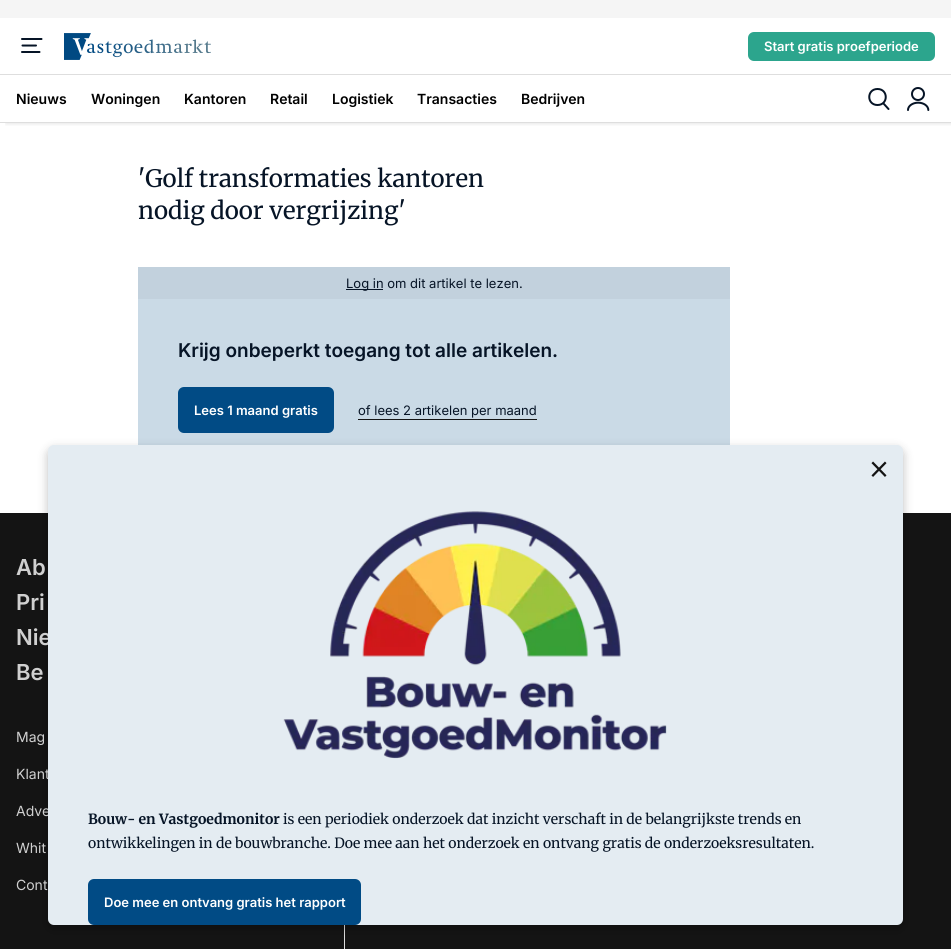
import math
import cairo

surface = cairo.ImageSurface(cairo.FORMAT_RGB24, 951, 949)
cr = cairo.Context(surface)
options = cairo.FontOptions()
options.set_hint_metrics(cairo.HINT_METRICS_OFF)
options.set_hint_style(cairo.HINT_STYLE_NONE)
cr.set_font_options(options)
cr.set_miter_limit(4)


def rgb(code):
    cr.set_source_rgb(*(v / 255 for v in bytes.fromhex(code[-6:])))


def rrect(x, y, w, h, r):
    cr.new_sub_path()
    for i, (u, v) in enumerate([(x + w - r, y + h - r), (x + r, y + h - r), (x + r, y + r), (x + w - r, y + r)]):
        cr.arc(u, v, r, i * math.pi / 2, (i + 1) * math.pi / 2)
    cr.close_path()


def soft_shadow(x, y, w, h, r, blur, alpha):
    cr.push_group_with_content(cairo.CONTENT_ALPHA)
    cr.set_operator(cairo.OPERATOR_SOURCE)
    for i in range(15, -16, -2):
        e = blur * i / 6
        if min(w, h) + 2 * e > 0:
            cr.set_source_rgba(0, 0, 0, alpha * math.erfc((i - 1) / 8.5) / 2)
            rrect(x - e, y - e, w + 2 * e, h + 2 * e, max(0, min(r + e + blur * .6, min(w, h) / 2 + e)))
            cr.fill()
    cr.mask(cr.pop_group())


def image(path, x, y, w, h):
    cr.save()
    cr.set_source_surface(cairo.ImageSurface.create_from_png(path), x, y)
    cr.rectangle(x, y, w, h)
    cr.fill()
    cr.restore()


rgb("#ffffff")
cr.paint()
rgb("#f5f5f5")
cr.rectangle(0, 0, 951, 18)
cr.fill()
cr.save()
cr.rectangle(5, 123, 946, 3)
cr.clip()
rgb("#000000")
soft_shadow(6, 23, 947, 101, 0, 2, 0.1)
cr.restore()
rgb("#dedede")
cr.rectangle(0, 122, 951, 1)
cr.fill()
cr.new_path()
cr.move_to(22, 39)
cr.line_to(41.5, 39)
cr.move_to(22.5, 45.5)
cr.line_to(36, 45.5)
cr.move_to(22, 52)
cr.line_to(39.5, 52)
rgb("#061426")
cr.set_line_cap(cairo.LINE_CAP_ROUND)
cr.set_line_join(cairo.LINE_JOIN_ROUND)
cr.stroke()
image("img/1.png", 64, 33, 147, 27)
rgb("#2ca58d")
rrect(748, 32, 187, 29, 6)
cr.fill()
rgb("#dedede")
cr.rectangle(0, 74, 951, 1)
cr.fill()
cr.new_path()
cr.move_to(877.5, 105)
cr.curve_to(888.5, 105, 888.5, 89, 877.5, 89)
cr.curve_to(866.5, 89, 866.5, 105, 877.5, 105)
cr.move_to(883.5, 103.5)
cr.line_to(888.5, 109)
rgb("#061426")
cr.stroke()
image("img/2.png", 907, 87, 23, 24)
for x, y, w, h, color in [
    (138, 267, 592, 32, "#c2d1dd"),
    (346, 289, 37, 1, "#061426"),
    (138, 299, 592, 146, "#cadae6"),
]:
    rgb(color)
    cr.rectangle(x, y, w, h)
    cr.fill()
rgb("#014b85")
rrect(178, 387, 156, 46, 6)
cr.fill()
for x, y, w, h, color in [
    (358, 419, 179, 1, "#141414"),
    (0, 513, 951, 436, "#141414"),
    (344, 925, 1, 24, "#dedede"),
]:
    rgb(color)
    cr.rectangle(x, y, w, h)
    cr.fill()
rgb("#000000")
soft_shadow(48, 449, 855, 480, 6, 5, 0.25)
cr.select_font_face("Inter SemiBold")
cr.set_font_size(13)
rgb("#ffffff")
cr.move_to(764, 51)
cr.show_text("Start gratis proefperiode")
cr.set_font_size(14)
rgb("#000000")
for x, y, s in [
    (16, 104, "Nieuws"),
    (91, 104, "Woningen"),
    (184, 104, "Kantoren"),
    (270, 104, "Retail"),
    (332, 104, "Logistiek"),
    (417, 104, "Transacties"),
    (521, 104, "Bedrijven"),
]:
    cr.move_to(x, y)
    cr.show_text(s)
cr.select_font_face("Merriweather")
cr.set_font_size(24)
rgb("#061426")
cr.move_to(138, 187)
cr.show_text("'Golf transformaties kantoren")
cr.move_to(138, 219)
cr.show_text("nodig door vergrijzing'")
cr.select_font_face("Inter")
cr.set_font_size(13)
cr.move_to(346, 288)
cr.show_text("Log in om dit artikel te lezen.")
cr.select_font_face("Inter SemiBold")
cr.set_font_size(19)
cr.move_to(178, 357)
cr.show_text("Krijg onbeperkt toegang tot alle artikelen.")
cr.set_font_size(13)
rgb("#ffffff")
cr.move_to(194, 415)
cr.show_text("Lees 1 maand gratis")
cr.select_font_face("Inter")
rgb("#061426")
cr.move_to(358, 415)
cr.show_text("of lees 2 artikelen per maand")
cr.select_font_face("Inter SemiBold")
cr.set_font_size(22)
rgb("#d0d0d0")
for x, y, s in [
    (16, 575, "Ab"),
    (16, 610, "Pri"),
    (16, 645, "Nie"),
    (16, 680, "Be"),
]:
    cr.move_to(x, y)
    cr.show_text(s)
cr.select_font_face("Inter")
cr.set_font_size(14)
for x, y, s in [
    (16, 742, "Mag"),
    (16, 779, "Klant"),
    (16, 816, "Adve"),
    (16, 853, "Whit"),
    (16, 890, "Cont"),
]:
    cr.move_to(x, y)
    cr.show_text(s)
rgb("#e4ecf2")
rrect(48, 445, 855, 480, 6)
cr.fill()
image("img/3.png", 871, 461, 16, 16)
image("img/4.png", 283, 511, 384, 248)
cr.select_font_face("Merriweather", cairo.FONT_SLANT_NORMAL, cairo.FONT_WEIGHT_BOLD)
rgb("#061426")
cr.move_to(88, 824)
cr.show_text("Bouw- en Vastgoedmonitor")
cr.select_font_face("Merriweather")
cr.move_to(283, 824)
cr.show_text("is een periodiek onderzoek dat inzicht verschaft in de belangrijkste trends en")
cr.move_to(88, 848)
cr.show_text("ontwikkelingen in de bouwbranche. Doe mee aan het onderzoek en ontvang gratis de onderzoeksresultaten.")
rgb("#014b85")
rrect(88, 879, 273, 46, 6)
cr.fill()
cr.select_font_face("Inter SemiBold")
cr.set_font_size(13)
rgb("#ffffff")
cr.move_to(104, 907)
cr.show_text("Doe mee en ontvang gratis het rapport")
surface.write_to_png("page.png")
